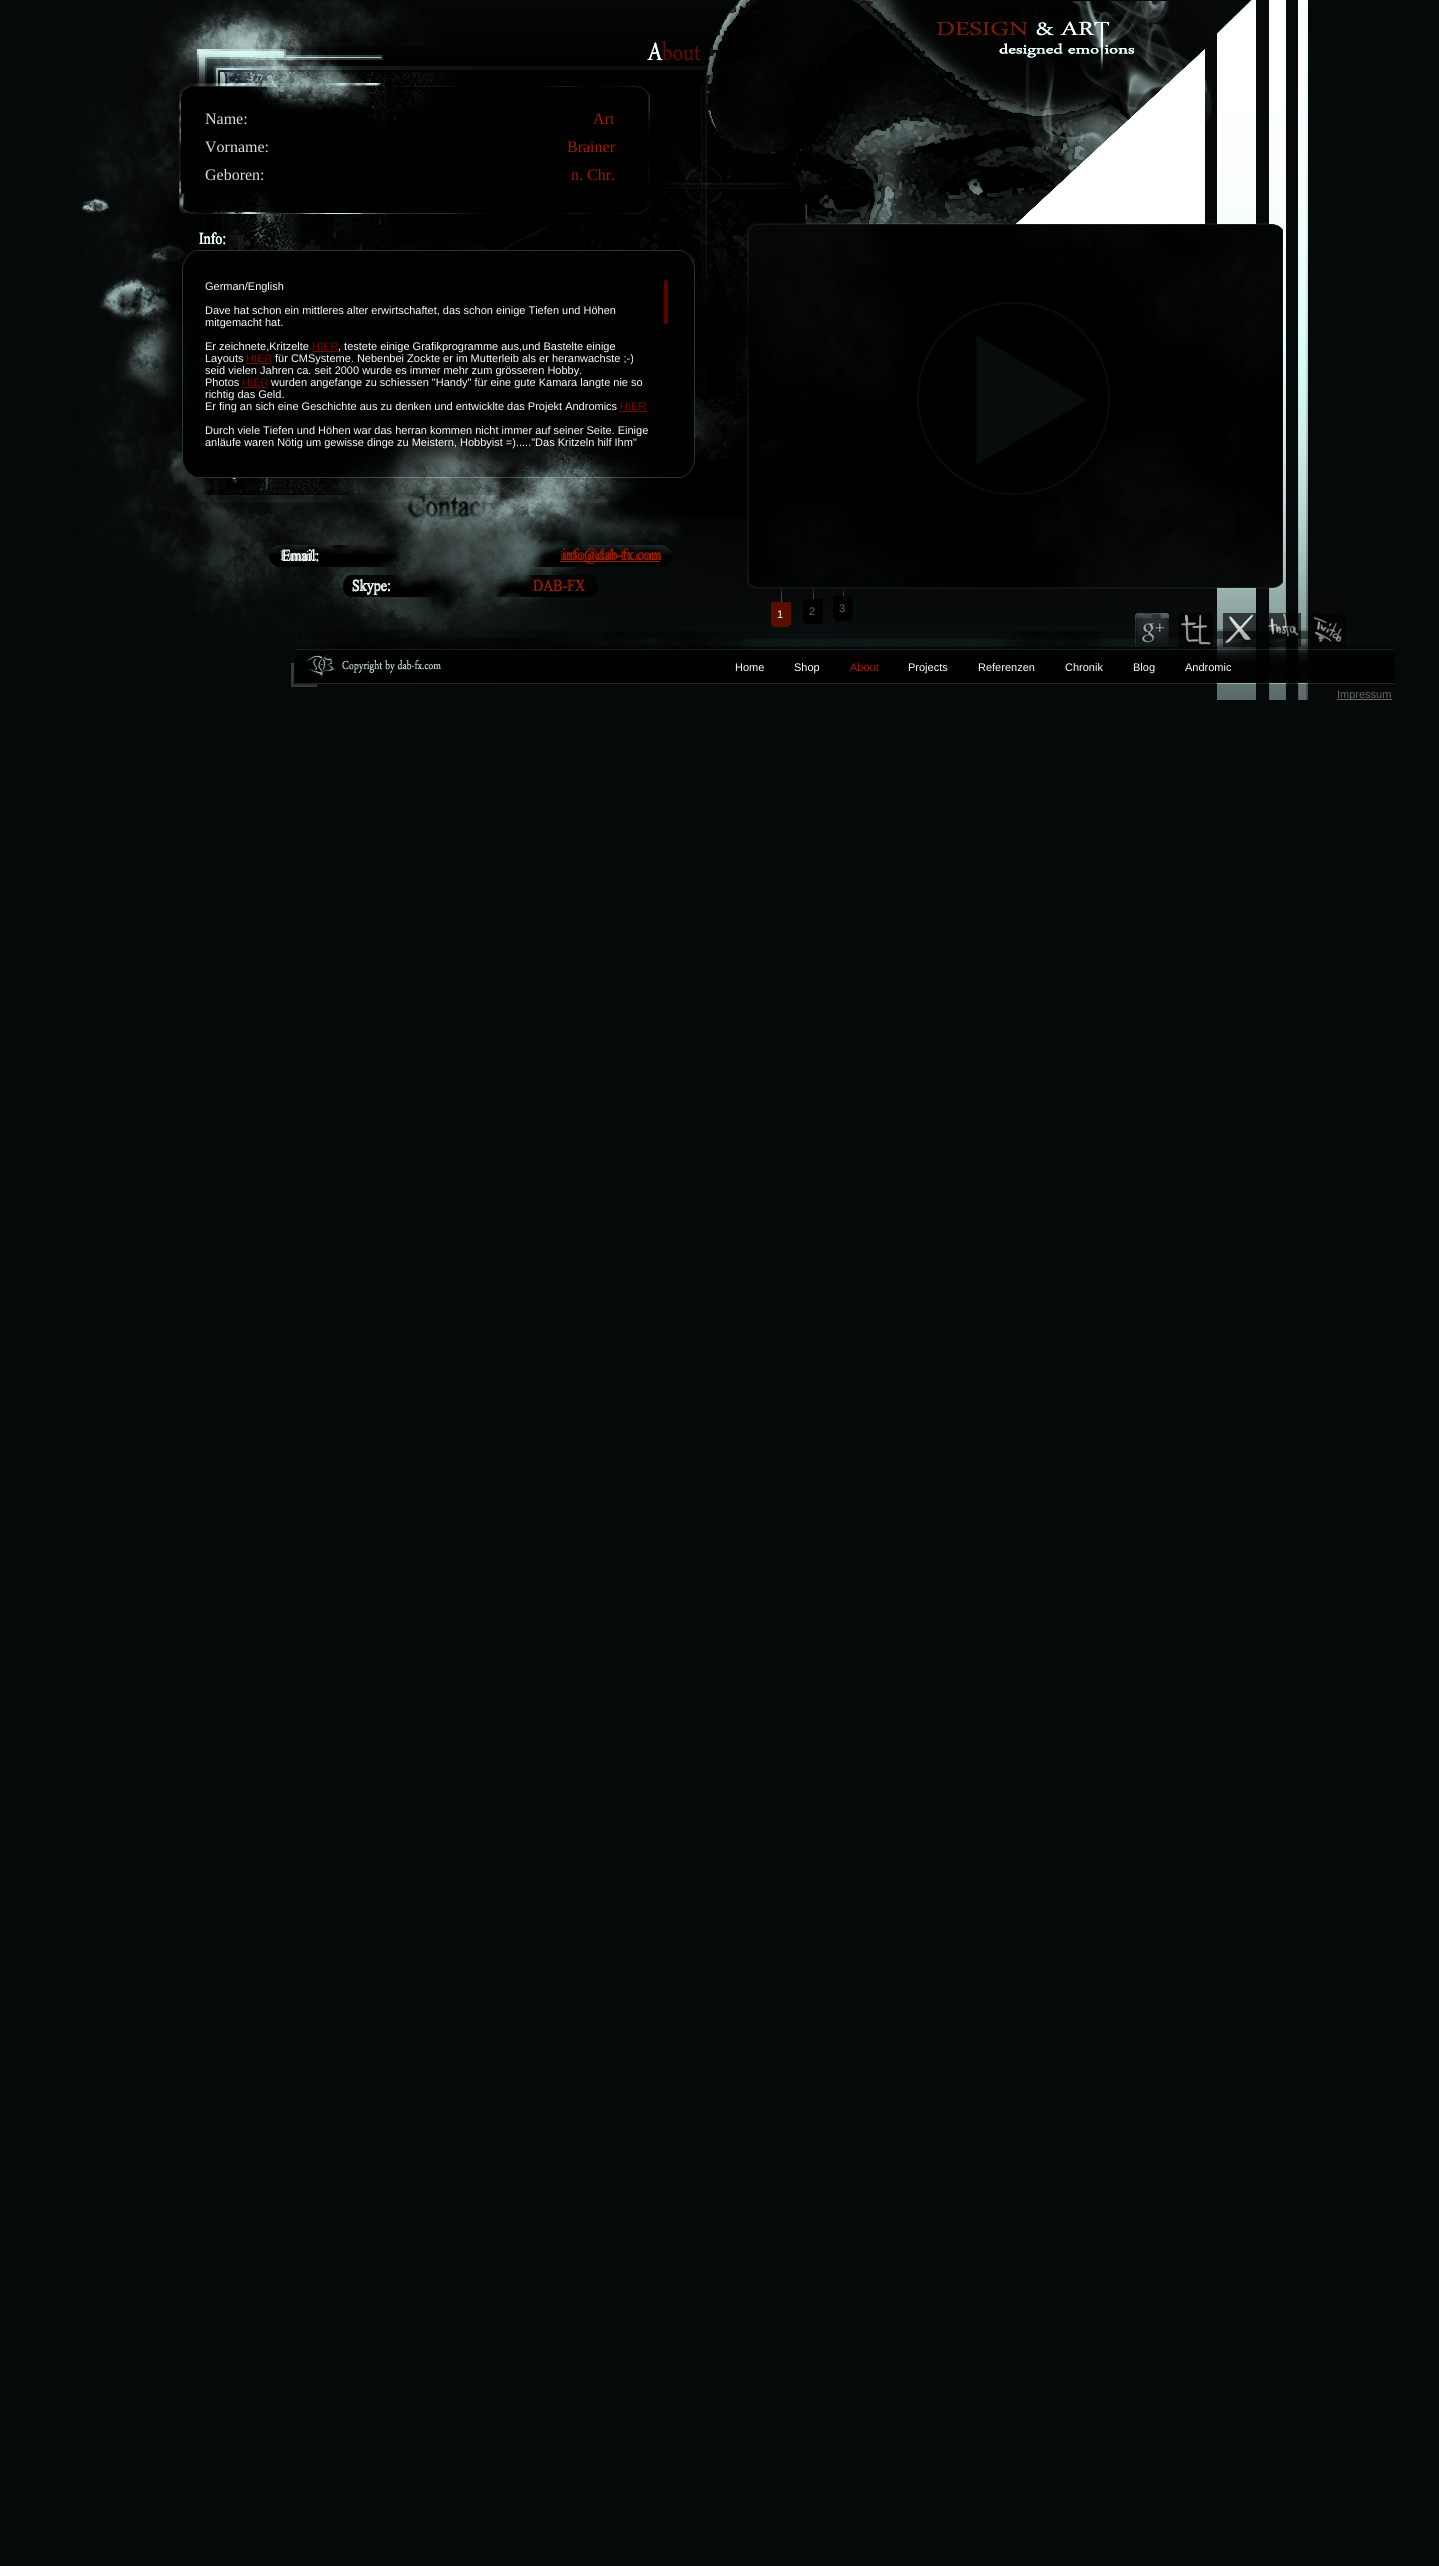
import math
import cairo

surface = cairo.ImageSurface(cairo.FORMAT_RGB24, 1439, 2566)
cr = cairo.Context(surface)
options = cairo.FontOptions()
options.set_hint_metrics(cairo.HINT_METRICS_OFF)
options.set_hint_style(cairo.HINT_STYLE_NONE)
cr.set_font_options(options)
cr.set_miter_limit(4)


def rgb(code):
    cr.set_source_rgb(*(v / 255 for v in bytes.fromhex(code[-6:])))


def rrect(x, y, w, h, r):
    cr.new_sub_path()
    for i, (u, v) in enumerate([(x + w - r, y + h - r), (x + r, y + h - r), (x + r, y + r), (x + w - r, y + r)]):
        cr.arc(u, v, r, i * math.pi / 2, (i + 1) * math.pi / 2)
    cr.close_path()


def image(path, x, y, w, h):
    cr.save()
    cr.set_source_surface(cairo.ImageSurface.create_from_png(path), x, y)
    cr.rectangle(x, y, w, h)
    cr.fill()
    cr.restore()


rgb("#050909")
cr.paint()
image("img/1.png", 78, 0, 1317, 700)
for x, y, w, h, color in [
    (312, 351, 26, 1, "#7d0000"),
    (246, 363, 26, 1, "#7d0000"),
    (242, 387, 26, 1, "#7d0000"),
    (620, 411, 26, 1, "#7d0000"),
]:
    rgb(color)
    cr.rectangle(x, y, w, h)
    cr.fill()
rgb("#5e0000")
rrect(664, 280, 4, 44, 2)
cr.fill()
rgb("#9b1d00")
cr.rectangle(560, 561, 100, 1)
cr.fill()
rgb("#590e01")
cr.new_path()
cr.move_to(771, 602)
cr.line_to(791, 602)
cr.line_to(791, 623)
cr.curve_to(791, 625, 789, 627, 787, 627)
cr.line_to(775, 627)
cr.curve_to(773, 627, 771, 625, 771, 623)
cr.close_path()
cr.fill()
rgb("#000000")
cr.new_path()
cr.move_to(803, 599)
cr.line_to(823, 599)
cr.line_to(823, 620)
cr.curve_to(823, 622, 821, 624, 819, 624)
cr.line_to(807, 624)
cr.curve_to(805, 624, 803, 622, 803, 620)
cr.close_path()
cr.fill()
cr.new_path()
cr.move_to(833, 596)
cr.line_to(853, 596)
cr.line_to(853, 617)
cr.curve_to(853, 619, 851, 621, 849, 621)
cr.line_to(837, 621)
cr.curve_to(835, 621, 833, 619, 833, 617)
cr.close_path()
cr.fill()
image("img/2.png", 1135, 613, 34, 34)
image("img/3.png", 1179, 613, 34, 34)
image("img/4.png", 1223, 613, 34, 34)
image("img/5.png", 1267, 613, 34, 34)
image("img/6.png", 1311, 613, 34, 34)
rgb("#666666")
cr.rectangle(1337, 699, 55, 1)
cr.fill()
cr.select_font_face("Liberation Serif")
cr.set_font_size(16)
rgb("#dddddd")
cr.move_to(205, 124)
cr.show_text("Name:")
rgb("#9b1d00")
cr.move_to(593, 124)
cr.show_text("Art")
rgb("#dddddd")
cr.move_to(205, 152)
cr.show_text("Vorname:")
rgb("#9b1d00")
cr.move_to(567, 152)
cr.show_text("Brainer")
rgb("#dddddd")
cr.move_to(205, 180)
cr.show_text("Geboren:")
rgb("#9b1d00")
cr.move_to(571, 180)
cr.show_text("n. Chr.")
cr.select_font_face("Liberation Sans")
cr.set_font_size(11)
rgb("#ffffff")
for x, y, s in [
    (205, 290, "German/English"),
    (205, 314, "Dave hat schon ein mittleres alter erwirtschaftet, das schon einige Tiefen und Höhen"),
    (205, 326, "mitgemacht hat."),
    (205, 350, "Er zeichnete,Kritzelte"),
]:
    cr.move_to(x, y)
    cr.show_text(s)
rgb("#7d0000")
cr.move_to(312, 350)
cr.show_text("HIER")
rgb("#ffffff")
cr.move_to(338, 350)
cr.show_text(", testete einige Grafikprogramme aus,und Bastelte einige")
cr.move_to(205, 362)
cr.show_text("Layouts")
rgb("#7d0000")
cr.move_to(246, 362)
cr.show_text("HIER")
rgb("#ffffff")
for x, y, s in [
    (275, 362, "für CMSysteme. Nebenbei Zockte er im Mutterleib als er heranwachste ;-)"),
    (205, 374, "seid vielen Jahren ca. seit 2000 wurde es immer mehr zum grösseren Hobby."),
    (205, 386, "Photos"),
]:
    cr.move_to(x, y)
    cr.show_text(s)
rgb("#7d0000")
cr.move_to(242, 386)
cr.show_text("HIER")
rgb("#ffffff")
for x, y, s in [
    (271, 386, "wurden angefange zu schiessen \"Handy\" für eine gute Kamara langte nie so"),
    (205, 398, "richtig das Geld."),
    (205, 410, "Er fing an sich eine Geschichte aus zu denken und entwicklte das Projekt Andromics"),
]:
    cr.move_to(x, y)
    cr.show_text(s)
rgb("#7d0000")
cr.move_to(620, 410)
cr.show_text("HIER")
rgb("#ffffff")
cr.move_to(205, 434)
cr.show_text("Durch viele Tiefen und Höhen war das herran kommen nicht immer auf seiner Seite. Einige")
cr.move_to(205, 446)
cr.show_text("anläufe waren Nötig um gewisse dinge zu Meistern, Hobbyist =).....\"Das Kritzeln hilf Ihm\"")
cr.select_font_face("Liberation Serif")
cr.set_font_size(14)
rgb("#dddddd")
cr.move_to(280, 560)
cr.show_text("Email:")
rgb("#9b1d00")
cr.move_to(560, 560)
cr.show_text("info@dab-fx.com")
rgb("#dddddd")
cr.move_to(352, 590)
cr.show_text("Skype:")
cr.select_font_face("Liberation Sans")
cr.set_font_size(11)
rgb("#ffffff")
cr.move_to(777, 618)
cr.show_text("1")
rgb("#666666")
cr.move_to(809, 615)
cr.show_text("2")
cr.move_to(839, 612)
cr.show_text("3")
rgb("#ffffff")
cr.move_to(735, 671)
cr.show_text("Home")
cr.move_to(794, 671)
cr.show_text("Shop")
rgb("#9b1d00")
cr.move_to(850, 671)
cr.show_text("About")
rgb("#ffffff")
for x, y, s in [
    (908, 671, "Projects"),
    (978, 671, "Referenzen"),
    (1065, 671, "Chronik"),
    (1133, 671, "Blog"),
    (1185, 671, "Andromic"),
]:
    cr.move_to(x, y)
    cr.show_text(s)
rgb("#666666")
cr.move_to(1337, 698)
cr.show_text("Impressum")
surface.write_to_png("page.png")
